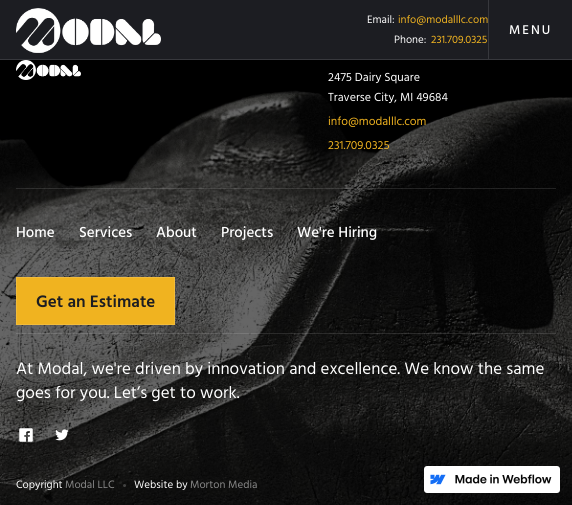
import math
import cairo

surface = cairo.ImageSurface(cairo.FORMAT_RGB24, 572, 505)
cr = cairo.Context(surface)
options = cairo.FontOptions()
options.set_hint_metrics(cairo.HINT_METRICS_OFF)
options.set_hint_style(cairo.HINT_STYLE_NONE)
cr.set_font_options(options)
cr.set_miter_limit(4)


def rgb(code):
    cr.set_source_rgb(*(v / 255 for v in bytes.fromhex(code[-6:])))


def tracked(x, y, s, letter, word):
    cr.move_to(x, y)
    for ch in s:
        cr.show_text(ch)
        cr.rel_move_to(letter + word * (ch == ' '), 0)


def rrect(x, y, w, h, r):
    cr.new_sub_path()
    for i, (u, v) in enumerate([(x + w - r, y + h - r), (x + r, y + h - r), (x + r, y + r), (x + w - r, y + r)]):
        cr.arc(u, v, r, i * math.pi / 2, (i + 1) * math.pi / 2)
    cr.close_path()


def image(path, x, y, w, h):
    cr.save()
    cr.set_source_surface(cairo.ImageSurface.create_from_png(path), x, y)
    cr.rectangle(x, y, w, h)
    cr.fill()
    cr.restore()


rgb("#ffffff")
cr.paint()
rgb("#1c1d22")
cr.rectangle(0, 0, 572, 59)
cr.fill()
rgb("#37383d")
cr.rectangle(0, 59, 572, 1)
cr.fill()
image("img/1.png", 16, 8, 145, 45)
cr.rectangle(488, 0, 1, 59)
cr.fill()
image("img/2.png", 0, 60, 572, 445)
cr.set_source_rgba(1, 1, 1, 0.12)
cr.rectangle(16, 188, 540, 1)
cr.fill()
image("img/3.png", 16, 60, 65, 20)
cr.rectangle(16, 333, 540, 1)
cr.fill()
rgb("#f0b320")
cr.rectangle(16.5, 277.5, 158, 47)
cr.fill_preserve()
rgb("#f2bc3b")
cr.set_line_width(1)
cr.stroke()
image("img/4.png", 19, 428, 14, 14)
image("img/5.png", 55, 429, 14, 12)
cr.set_source_rgba(1, 1, 1, 0.2)
cr.arc(124.5, 485.5, 1.5, 0, 2 * math.pi)
cr.fill()
rgb("#ffffff")
rrect(424, 466, 136, 27, 3)
cr.fill()
image("img/6.png", 430, 474, 16, 11)
image("img/7.png", 455, 474, 97, 10)
cr.select_font_face("Hind")
cr.set_font_size(11)
cr.move_to(367, 23)
cr.show_text("Email:")
rgb("#f0b320")
cr.move_to(398, 23)
cr.show_text("info@modalllc.com")
rgb("#ffffff")
cr.move_to(394, 43)
cr.show_text("Phone:")
rgb("#f0b320")
cr.move_to(431, 43)
cr.show_text("231.709.0325")
cr.select_font_face("Hind Medium")
cr.set_font_size(13)
rgb("#ffffff")
tracked(509, 34, "MENU", 2, 0)
cr.select_font_face("Hind")
cr.set_font_size(12)
cr.move_to(328, 81)
cr.show_text("2475 Dairy Square")
cr.move_to(328, 101)
cr.show_text("Traverse City, MI 49684")
rgb("#f0b320")
cr.move_to(328, 125)
cr.show_text("info@modalllc.com")
cr.move_to(328, 149)
cr.show_text("231.709.0325")
cr.select_font_face("Hind Medium")
cr.set_font_size(15)
rgb("#ffffff")
for x, y, s in [
    (16, 237, "Home"),
    (79, 237, "Services"),
    (156, 237, "About"),
    (221, 237, "Projects"),
    (297, 237, "We're Hiring"),
]:
    cr.move_to(x, y)
    cr.show_text(s)
cr.select_font_face("Hind SemiBold")
cr.set_font_size(17)
rgb("#1c1d22")
cr.move_to(36, 307)
cr.show_text("Get an Estimate")
cr.select_font_face("Hind")
rgb("#ffffff")
cr.move_to(16, 374)
cr.show_text("At Modal, we're driven by innovation and excellence. We know the same")
cr.move_to(16, 398)
cr.show_text("goes for you. Let’s get to work.")
cr.set_font_size(11)
cr.move_to(16, 488)
cr.show_text("Copyright")
rgb("#888888")
cr.move_to(65, 488)
cr.show_text("Modal LLC")
rgb("#ffffff")
cr.move_to(134, 488)
cr.show_text("Website by")
rgb("#888888")
cr.move_to(190, 488)
cr.show_text("Morton Media")
surface.write_to_png("page.png")
